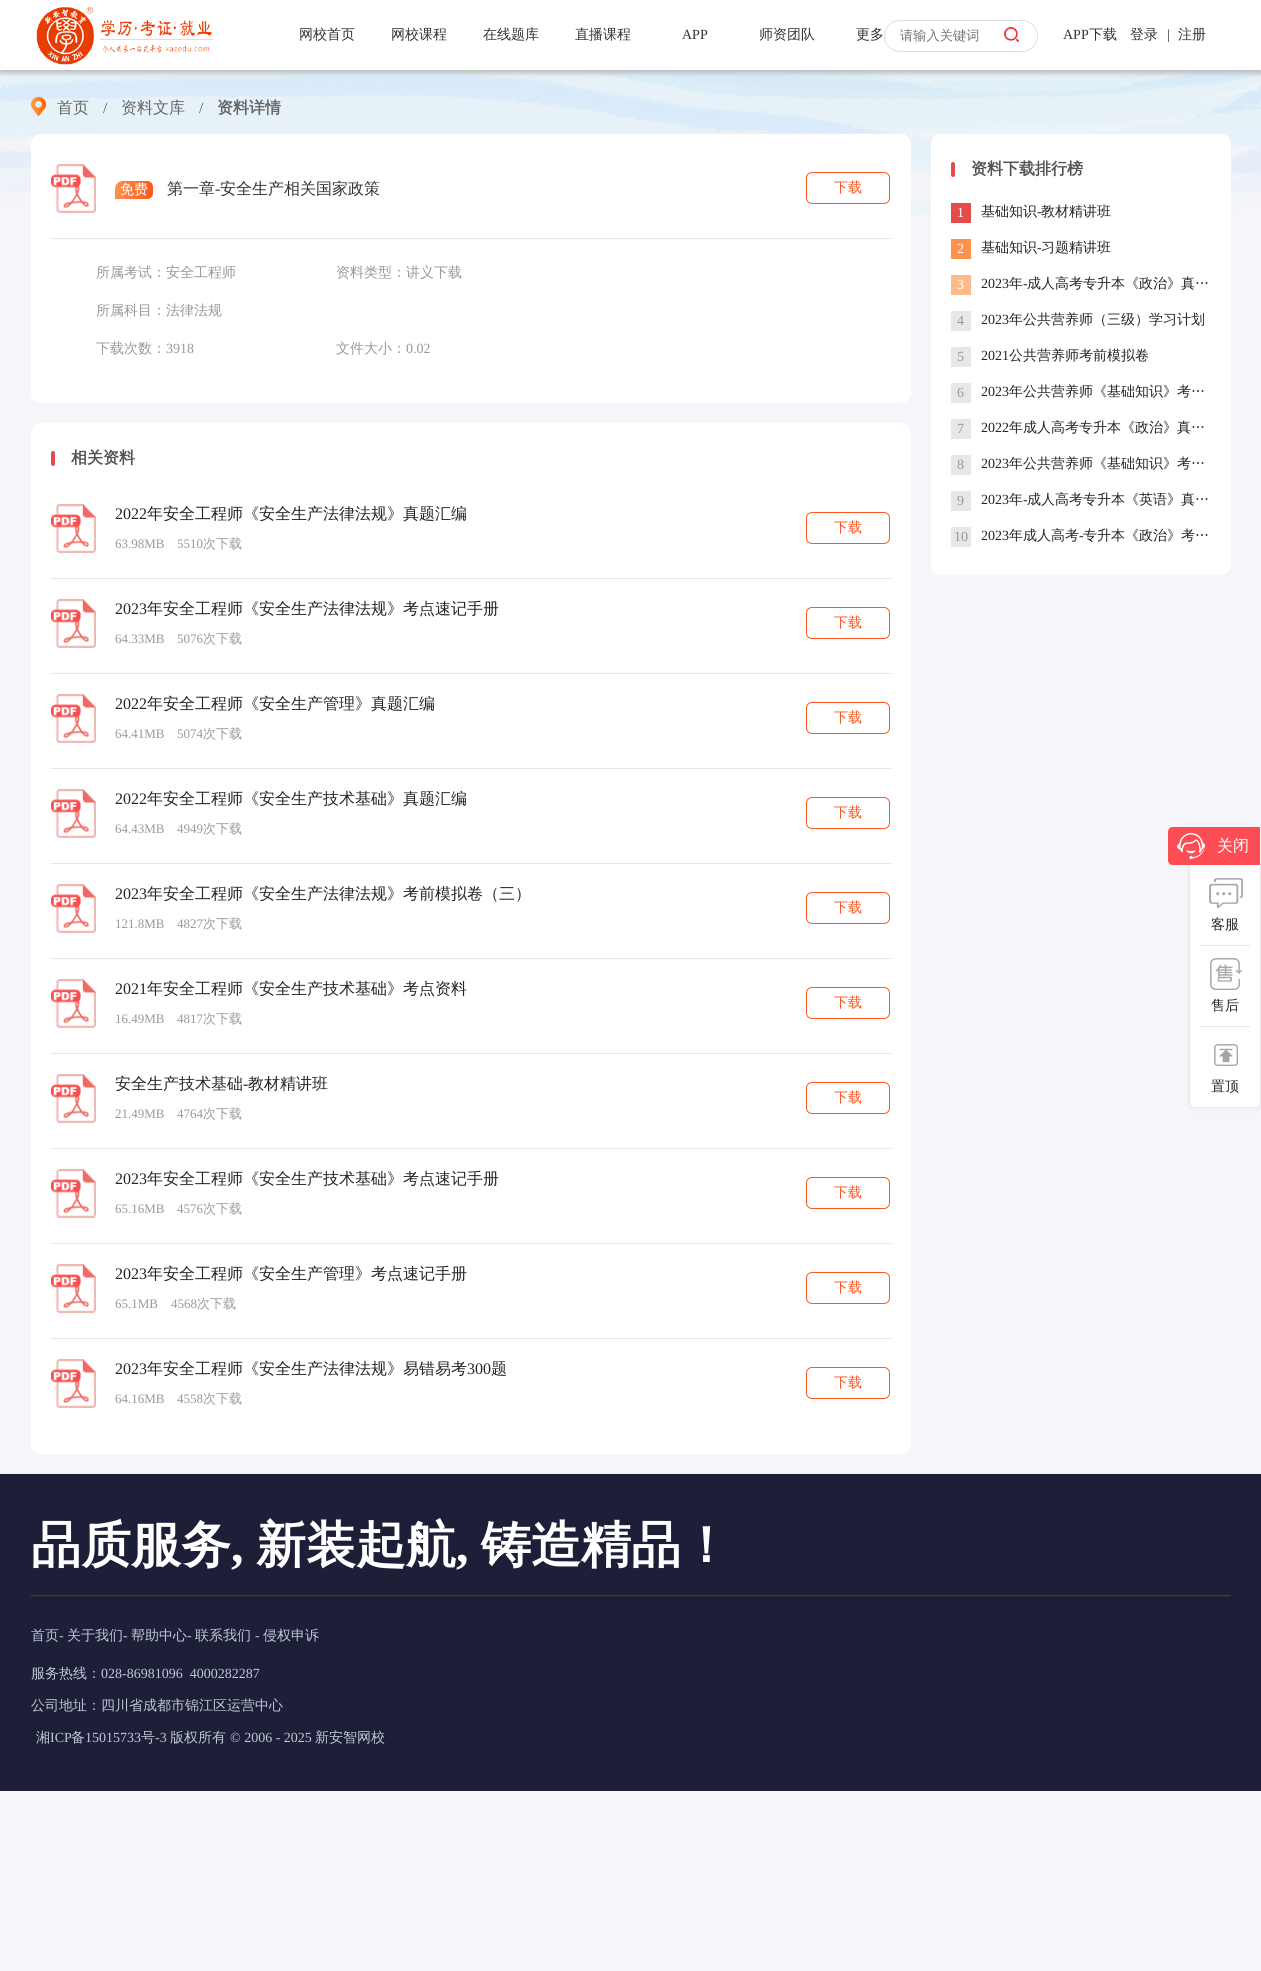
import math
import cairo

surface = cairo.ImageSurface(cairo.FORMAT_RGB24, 1261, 1971)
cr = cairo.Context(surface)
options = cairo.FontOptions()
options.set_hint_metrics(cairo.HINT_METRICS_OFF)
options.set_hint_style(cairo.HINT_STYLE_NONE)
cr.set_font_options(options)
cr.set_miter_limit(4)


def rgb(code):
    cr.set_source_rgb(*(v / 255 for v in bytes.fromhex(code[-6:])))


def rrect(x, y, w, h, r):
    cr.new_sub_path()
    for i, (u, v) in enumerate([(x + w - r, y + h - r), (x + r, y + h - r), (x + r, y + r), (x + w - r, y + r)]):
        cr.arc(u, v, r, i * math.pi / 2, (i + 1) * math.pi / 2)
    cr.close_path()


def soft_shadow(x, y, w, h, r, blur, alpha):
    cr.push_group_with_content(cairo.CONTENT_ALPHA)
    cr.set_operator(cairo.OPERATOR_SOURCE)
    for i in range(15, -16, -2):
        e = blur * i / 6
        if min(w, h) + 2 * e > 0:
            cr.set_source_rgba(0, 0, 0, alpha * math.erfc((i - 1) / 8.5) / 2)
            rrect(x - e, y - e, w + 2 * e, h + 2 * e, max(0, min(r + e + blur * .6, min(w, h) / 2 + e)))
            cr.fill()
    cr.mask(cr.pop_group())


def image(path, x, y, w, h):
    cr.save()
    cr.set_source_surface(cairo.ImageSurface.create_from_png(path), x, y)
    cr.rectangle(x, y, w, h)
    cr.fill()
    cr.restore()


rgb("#f6f6fa")
cr.paint()
image("img/3.png", 0, 70, 1261, 146)
rgb("#b9b9b9")
soft_shadow(0, 3, 1261, 70, 0, 2.5, 1)
rgb("#ffffff")
cr.rectangle(0, 0, 1261, 70)
cr.fill()
image("img/1.png", 36, 7, 177, 58)
rrect(884.5, 20.5, 153, 31, 15.5)
rgb("#dfdfdf")
cr.set_line_width(1)
cr.stroke()
cr.save()
rrect(885, 21, 152, 30, 15)
cr.clip()
rgb("#ffffff")
cr.rectangle(885, 26, 110, 20)
cr.fill()
cr.new_path()
cr.move_to(885.5, 26)
cr.line_to(885.5, 46)
rgb("#dfdfdf")
cr.set_dash([3, 2.67])
cr.stroke()
cr.restore()
image("img/2.png", 1004, 27, 15, 15)
image("img/4.png", 31, 97, 15, 19)
rgb("#ffffff")
rrect(31, 134, 880, 269, 10)
cr.fill()
rgb("#e5e5e5")
cr.rectangle(51, 238, 840, 1)
cr.fill()
image("img/5.png", 51, 164, 45, 49)
gradient = cairo.LinearGradient(115, 190, 153, 190)
gradient.add_color_stop_rgba(0, 0.992, 0.569, 0.286, 1)
gradient.add_color_stop_rgba(1, 0.992, 0.345, 0.122, 1)
cr.set_source(gradient)
cr.new_path()
cr.move_to(123, 181)
cr.line_to(147, 181)
cr.curve_to(150.5, 181, 153, 183.5, 153, 187)
cr.line_to(153, 193)
cr.curve_to(153, 196.5, 150.5, 199, 147, 199)
cr.line_to(115, 199)
cr.line_to(115, 189)
cr.curve_to(115, 184.5, 118.5, 181, 123, 181)
cr.close_path()
cr.fill()
rrect(806.5, 172.5, 83, 31, 5.5)
rgb("#fd561e")
cr.stroke()
rgb("#ffffff")
rrect(31, 423, 880, 1031, 10)
cr.fill()
rgb("#e54b4b")
rrect(51, 451, 4, 15, 2)
cr.fill()
rgb("#e5e5e5")
cr.rectangle(51, 578, 840, 1)
cr.fill()
image("img/5.png", 51, 504, 45, 49)
rrect(806.5, 512.5, 83, 31, 5.5)
rgb("#fd561e")
cr.stroke()
rgb("#e5e5e5")
cr.rectangle(51, 673, 840, 1)
cr.fill()
image("img/5.png", 51, 599, 45, 49)
rrect(806.5, 607.5, 83, 31, 5.5)
rgb("#fd561e")
cr.stroke()
rgb("#e5e5e5")
cr.rectangle(51, 768, 840, 1)
cr.fill()
image("img/5.png", 51, 694, 45, 49)
rrect(806.5, 702.5, 83, 31, 5.5)
rgb("#fd561e")
cr.stroke()
rgb("#e5e5e5")
cr.rectangle(51, 863, 840, 1)
cr.fill()
image("img/5.png", 51, 789, 45, 49)
rrect(806.5, 797.5, 83, 31, 5.5)
rgb("#fd561e")
cr.stroke()
rgb("#e5e5e5")
cr.rectangle(51, 958, 840, 1)
cr.fill()
image("img/5.png", 51, 884, 45, 49)
rrect(806.5, 892.5, 83, 31, 5.5)
rgb("#fd561e")
cr.stroke()
rgb("#e5e5e5")
cr.rectangle(51, 1053, 840, 1)
cr.fill()
image("img/5.png", 51, 979, 45, 49)
rrect(806.5, 987.5, 83, 31, 5.5)
rgb("#fd561e")
cr.stroke()
rgb("#e5e5e5")
cr.rectangle(51, 1148, 840, 1)
cr.fill()
image("img/5.png", 51, 1074, 45, 49)
rrect(806.5, 1082.5, 83, 31, 5.5)
rgb("#fd561e")
cr.stroke()
rgb("#e5e5e5")
cr.rectangle(51, 1243, 840, 1)
cr.fill()
image("img/5.png", 51, 1169, 45, 49)
rrect(806.5, 1177.5, 83, 31, 5.5)
rgb("#fd561e")
cr.stroke()
rgb("#e5e5e5")
cr.rectangle(51, 1338, 840, 1)
cr.fill()
image("img/5.png", 51, 1264, 45, 49)
rrect(806.5, 1272.5, 83, 31, 5.5)
rgb("#fd561e")
cr.stroke()
image("img/5.png", 51, 1359, 45, 49)
rrect(806.5, 1367.5, 83, 31, 5.5)
cr.stroke()
rgb("#ffffff")
rrect(931, 134, 300, 441, 10)
cr.fill()
rgb("#e54b4b")
rrect(951, 162, 4, 15, 2)
cr.fill()
for x, y, w, h, color in [
    (951, 203, 20, 20, "#e54b4b"),
    (951, 239, 20, 20, "#fd9149"),
    (951, 275, 20, 20, "#feba89"),
    (951, 311, 20, 20, "#e7e7e7"),
    (951, 347, 20, 20, "#e7e7e7"),
    (951, 383, 20, 20, "#e7e7e7"),
    (951, 419, 20, 20, "#e7e7e7"),
    (951, 455, 20, 20, "#e7e7e7"),
    (951, 491, 20, 20, "#e7e7e7"),
    (951, 527, 20, 20, "#e7e7e7"),
]:
    rgb(color)
    cr.rectangle(x, y, w, h)
    cr.fill()
rgb("#e8e8e8")
soft_shadow(1189, 864, 72, 244, 5, 2.5, 1)
rgb("#ffffff")
cr.new_path()
cr.move_to(1189.5, 864.5)
cr.line_to(1260.5, 864.5)
cr.line_to(1260.5, 1103)
cr.curve_to(1260.5, 1105.5, 1258.5, 1107.5, 1256, 1107.5)
cr.line_to(1194, 1107.5)
cr.curve_to(1191.5, 1107.5, 1189.5, 1105.5, 1189.5, 1103)
cr.close_path()
cr.fill_preserve()
rgb("#e8e8e8")
cr.stroke()
rgb("#fc4d55")
cr.new_path()
cr.move_to(1173, 827)
cr.line_to(1260, 827)
cr.line_to(1260, 865)
cr.line_to(1173, 865)
cr.curve_to(1170, 865, 1168, 863, 1168, 860)
cr.line_to(1168, 832)
cr.curve_to(1168, 829, 1170, 827, 1173, 827)
cr.close_path()
cr.fill()
image("img/6.png", 1177, 833, 28, 26)
rgb("#e8e8e8")
cr.rectangle(1200, 945, 50, 1)
cr.fill()
image("img/7.png", 1209, 878, 34, 30)
cr.rectangle(1200, 1026, 50, 1)
cr.fill()
image("img/8.png", 1210, 958, 32, 32)
image("img/9.png", 1214, 1044, 24, 22)
for x, y, w, h, color in [
    (0, 1474, 1261, 317, "#1c1f37"),
    (31, 1595, 1200, 1, "#3c4048"),
    (31, 1596, 1200, 1, "#23272d"),
]:
    rgb(color)
    cr.rectangle(x, y, w, h)
    cr.fill()
cr.select_font_face("WenQuanYi Zen Hei Medium")
cr.set_font_size(14)
rgb("#333333")
for x, y, s in [
    (299, 39, "网校首页"),
    (391, 39, "网校课程"),
    (483, 39, "在线题库"),
    (575, 39, "直播课程"),
]:
    cr.move_to(x, y)
    cr.show_text(s)
cr.select_font_face("Liberation Serif")
cr.move_to(682, 39)
cr.show_text("APP")
cr.select_font_face("WenQuanYi Zen Hei Medium")
cr.move_to(759, 39)
cr.show_text("师资团队")
cr.move_to(856, 39)
cr.show_text("更多")
cr.set_font_size(13.25)
rgb("#757575")
cr.move_to(900, 40)
cr.show_text("请输入关键词")
cr.select_font_face("Liberation Serif")
cr.set_font_size(14)
rgb("#333333")
cr.move_to(1063, 39)
cr.show_text("APP")
cr.select_font_face("WenQuanYi Zen Hei Medium")
cr.move_to(1089, 39)
cr.show_text("下载")
cr.move_to(1130, 39)
cr.show_text("登录")
cr.select_font_face("Liberation Serif")
cr.move_to(1167, 39)
cr.show_text("|")
cr.select_font_face("WenQuanYi Zen Hei Medium")
cr.move_to(1178, 39)
cr.show_text("注册")
cr.set_font_size(16)
rgb("#666666")
cr.move_to(57, 113)
cr.show_text("首页")
cr.select_font_face("Liberation Serif")
cr.move_to(103, 113)
cr.show_text("/")
cr.select_font_face("WenQuanYi Zen Hei Medium")
cr.move_to(121, 113)
cr.show_text("资料文库")
cr.select_font_face("Liberation Serif")
cr.move_to(199, 113)
cr.show_text("/")
cr.select_font_face("WenQuanYi Zen Hei", cairo.FONT_SLANT_NORMAL, cairo.FONT_WEIGHT_BOLD)
cr.move_to(217, 113)
cr.show_text("资料详情")
cr.select_font_face("WenQuanYi Zen Hei Medium")
cr.set_font_size(14)
rgb("#ffffff")
cr.move_to(120, 194)
cr.show_text("免费")
cr.set_font_size(16)
rgb("#333333")
cr.move_to(167, 194)
cr.show_text("第一章")
cr.select_font_face("Liberation Serif")
cr.move_to(215, 194)
cr.show_text("-")
cr.select_font_face("WenQuanYi Zen Hei Medium")
cr.move_to(220, 194)
cr.show_text("安全生产相关国家政策")
cr.set_font_size(14)
rgb("#fd551e")
cr.move_to(834, 192)
cr.show_text("下载")
rgb("#999999")
for x, y, s in [
    (96, 277, "所属考试：安全工程师"),
    (336, 277, "资料类型：讲义下载"),
    (96, 315, "所属科目：法律法规"),
    (96, 353, "下载次数："),
]:
    cr.move_to(x, y)
    cr.show_text(s)
cr.select_font_face("Liberation Serif")
cr.move_to(166, 353)
cr.show_text("3918")
cr.select_font_face("WenQuanYi Zen Hei Medium")
cr.move_to(336, 353)
cr.show_text("文件大小：")
cr.select_font_face("Liberation Serif")
cr.move_to(406, 353)
cr.show_text("0.02")
cr.select_font_face("WenQuanYi Zen Hei", cairo.FONT_SLANT_NORMAL, cairo.FONT_WEIGHT_BOLD)
cr.set_font_size(16)
rgb("#545353")
cr.move_to(71, 463)
cr.show_text("相关资料")
cr.select_font_face("Liberation Serif")
rgb("#252525")
cr.move_to(115, 519)
cr.show_text("2022")
cr.select_font_face("WenQuanYi Zen Hei Medium")
cr.move_to(147, 519)
cr.show_text("年安全工程师《安全生产法律法规》真题汇编")
cr.select_font_face("Liberation Serif")
cr.set_font_size(13)
rgb("#999999")
cr.move_to(115, 548)
cr.show_text("63.98MB")
cr.move_to(177, 548)
cr.show_text("5510")
cr.select_font_face("WenQuanYi Zen Hei Medium")
cr.move_to(203, 548)
cr.show_text("次下载")
cr.set_font_size(14)
rgb("#fd551e")
cr.move_to(834, 532)
cr.show_text("下载")
cr.select_font_face("Liberation Serif")
cr.set_font_size(16)
rgb("#252525")
cr.move_to(115, 614)
cr.show_text("2023")
cr.select_font_face("WenQuanYi Zen Hei Medium")
cr.move_to(147, 614)
cr.show_text("年安全工程师《安全生产法律法规》考点速记手册")
cr.select_font_face("Liberation Serif")
cr.set_font_size(13)
rgb("#999999")
cr.move_to(115, 643)
cr.show_text("64.33MB")
cr.move_to(177, 643)
cr.show_text("5076")
cr.select_font_face("WenQuanYi Zen Hei Medium")
cr.move_to(203, 643)
cr.show_text("次下载")
cr.set_font_size(14)
rgb("#fd551e")
cr.move_to(834, 627)
cr.show_text("下载")
cr.select_font_face("Liberation Serif")
cr.set_font_size(16)
rgb("#252525")
cr.move_to(115, 709)
cr.show_text("2022")
cr.select_font_face("WenQuanYi Zen Hei Medium")
cr.move_to(147, 709)
cr.show_text("年安全工程师《安全生产管理》真题汇编")
cr.select_font_face("Liberation Serif")
cr.set_font_size(13)
rgb("#999999")
cr.move_to(115, 738)
cr.show_text("64.41MB")
cr.move_to(177, 738)
cr.show_text("5074")
cr.select_font_face("WenQuanYi Zen Hei Medium")
cr.move_to(203, 738)
cr.show_text("次下载")
cr.set_font_size(14)
rgb("#fd551e")
cr.move_to(834, 722)
cr.show_text("下载")
cr.select_font_face("Liberation Serif")
cr.set_font_size(16)
rgb("#252525")
cr.move_to(115, 804)
cr.show_text("2022")
cr.select_font_face("WenQuanYi Zen Hei Medium")
cr.move_to(147, 804)
cr.show_text("年安全工程师《安全生产技术基础》真题汇编")
cr.select_font_face("Liberation Serif")
cr.set_font_size(13)
rgb("#999999")
cr.move_to(115, 833)
cr.show_text("64.43MB")
cr.move_to(177, 833)
cr.show_text("4949")
cr.select_font_face("WenQuanYi Zen Hei Medium")
cr.move_to(203, 833)
cr.show_text("次下载")
cr.set_font_size(14)
rgb("#fd551e")
cr.move_to(834, 817)
cr.show_text("下载")
cr.select_font_face("Liberation Serif")
cr.set_font_size(16)
rgb("#252525")
cr.move_to(115, 899)
cr.show_text("2023")
cr.select_font_face("WenQuanYi Zen Hei Medium")
cr.move_to(147, 899)
cr.show_text("年安全工程师《安全生产法律法规》考前模拟卷（三）")
cr.select_font_face("Liberation Serif")
cr.set_font_size(13)
rgb("#999999")
cr.move_to(115, 928)
cr.show_text("121.8MB")
cr.move_to(177, 928)
cr.show_text("4827")
cr.select_font_face("WenQuanYi Zen Hei Medium")
cr.move_to(203, 928)
cr.show_text("次下载")
cr.set_font_size(14)
rgb("#fd551e")
cr.move_to(834, 912)
cr.show_text("下载")
cr.select_font_face("Liberation Serif")
cr.set_font_size(16)
rgb("#252525")
cr.move_to(115, 994)
cr.show_text("2021")
cr.select_font_face("WenQuanYi Zen Hei Medium")
cr.move_to(147, 994)
cr.show_text("年安全工程师《安全生产技术基础》考点资料")
cr.select_font_face("Liberation Serif")
cr.set_font_size(13)
rgb("#999999")
cr.move_to(115, 1023)
cr.show_text("16.49MB")
cr.move_to(177, 1023)
cr.show_text("4817")
cr.select_font_face("WenQuanYi Zen Hei Medium")
cr.move_to(203, 1023)
cr.show_text("次下载")
cr.set_font_size(14)
rgb("#fd551e")
cr.move_to(834, 1007)
cr.show_text("下载")
cr.set_font_size(16)
rgb("#252525")
cr.move_to(115, 1089)
cr.show_text("安全生产技术基础")
cr.select_font_face("Liberation Serif")
cr.move_to(243, 1089)
cr.show_text("-")
cr.select_font_face("WenQuanYi Zen Hei Medium")
cr.move_to(248, 1089)
cr.show_text("教材精讲班")
cr.select_font_face("Liberation Serif")
cr.set_font_size(13)
rgb("#999999")
cr.move_to(115, 1118)
cr.show_text("21.49MB")
cr.move_to(177, 1118)
cr.show_text("4764")
cr.select_font_face("WenQuanYi Zen Hei Medium")
cr.move_to(203, 1118)
cr.show_text("次下载")
cr.set_font_size(14)
rgb("#fd551e")
cr.move_to(834, 1102)
cr.show_text("下载")
cr.select_font_face("Liberation Serif")
cr.set_font_size(16)
rgb("#252525")
cr.move_to(115, 1184)
cr.show_text("2023")
cr.select_font_face("WenQuanYi Zen Hei Medium")
cr.move_to(147, 1184)
cr.show_text("年安全工程师《安全生产技术基础》考点速记手册")
cr.select_font_face("Liberation Serif")
cr.set_font_size(13)
rgb("#999999")
cr.move_to(115, 1213)
cr.show_text("65.16MB")
cr.move_to(177, 1213)
cr.show_text("4576")
cr.select_font_face("WenQuanYi Zen Hei Medium")
cr.move_to(203, 1213)
cr.show_text("次下载")
cr.set_font_size(14)
rgb("#fd551e")
cr.move_to(834, 1197)
cr.show_text("下载")
cr.select_font_face("Liberation Serif")
cr.set_font_size(16)
rgb("#252525")
cr.move_to(115, 1279)
cr.show_text("2023")
cr.select_font_face("WenQuanYi Zen Hei Medium")
cr.move_to(147, 1279)
cr.show_text("年安全工程师《安全生产管理》考点速记手册")
cr.select_font_face("Liberation Serif")
cr.set_font_size(13)
rgb("#999999")
cr.move_to(115, 1308)
cr.show_text("65.1MB")
cr.move_to(171, 1308)
cr.show_text("4568")
cr.select_font_face("WenQuanYi Zen Hei Medium")
cr.move_to(197, 1308)
cr.show_text("次下载")
cr.set_font_size(14)
rgb("#fd551e")
cr.move_to(834, 1292)
cr.show_text("下载")
cr.select_font_face("Liberation Serif")
cr.set_font_size(16)
rgb("#252525")
cr.move_to(115, 1374)
cr.show_text("2023")
cr.select_font_face("WenQuanYi Zen Hei Medium")
cr.move_to(147, 1374)
cr.show_text("年安全工程师《安全生产法律法规》易错易考")
cr.select_font_face("Liberation Serif")
cr.move_to(467, 1374)
cr.show_text("300")
cr.select_font_face("WenQuanYi Zen Hei Medium")
cr.move_to(491, 1374)
cr.show_text("题")
cr.select_font_face("Liberation Serif")
cr.set_font_size(13)
rgb("#999999")
cr.move_to(115, 1403)
cr.show_text("64.16MB")
cr.move_to(177, 1403)
cr.show_text("4558")
cr.select_font_face("WenQuanYi Zen Hei Medium")
cr.move_to(203, 1403)
cr.show_text("次下载")
cr.set_font_size(14)
rgb("#fd551e")
cr.move_to(834, 1387)
cr.show_text("下载")
cr.select_font_face("WenQuanYi Zen Hei", cairo.FONT_SLANT_NORMAL, cairo.FONT_WEIGHT_BOLD)
cr.set_font_size(16)
rgb("#545353")
cr.move_to(971, 174)
cr.show_text("资料下载排行榜")
cr.select_font_face("Liberation Serif")
cr.set_font_size(14)
rgb("#ffffff")
cr.move_to(957, 217)
cr.show_text("1")
cr.select_font_face("WenQuanYi Zen Hei Medium")
rgb("#252525")
cr.move_to(981, 216)
cr.show_text("基础知识")
cr.select_font_face("Liberation Serif")
cr.move_to(1037, 216)
cr.show_text("-")
cr.select_font_face("WenQuanYi Zen Hei Medium")
cr.move_to(1041, 216)
cr.show_text("教材精讲班")
cr.select_font_face("Liberation Serif")
rgb("#ffffff")
cr.move_to(957, 253)
cr.show_text("2")
cr.select_font_face("WenQuanYi Zen Hei Medium")
rgb("#252525")
cr.move_to(981, 252)
cr.show_text("基础知识")
cr.select_font_face("Liberation Serif")
cr.move_to(1037, 252)
cr.show_text("-")
cr.select_font_face("WenQuanYi Zen Hei Medium")
cr.move_to(1041, 252)
cr.show_text("习题精讲班")
cr.select_font_face("Liberation Serif")
rgb("#ffffff")
cr.move_to(957, 289)
cr.show_text("3")
rgb("#252525")
cr.move_to(981, 288)
cr.show_text("2023")
cr.select_font_face("WenQuanYi Zen Hei Medium")
cr.move_to(1009, 288)
cr.show_text("年")
cr.select_font_face("Liberation Serif")
cr.move_to(1023, 288)
cr.show_text("-")
cr.select_font_face("WenQuanYi Zen Hei Medium")
cr.move_to(1027, 288)
cr.show_text("成人高考专升本《政治》真…")
cr.select_font_face("Liberation Serif")
rgb("#999999")
cr.move_to(957, 325)
cr.show_text("4")
rgb("#252525")
cr.move_to(981, 324)
cr.show_text("2023")
cr.select_font_face("WenQuanYi Zen Hei Medium")
cr.move_to(1009, 324)
cr.show_text("年公共营养师（三级）学习计划")
cr.select_font_face("Liberation Serif")
rgb("#999999")
cr.move_to(957, 361)
cr.show_text("5")
rgb("#252525")
cr.move_to(981, 360)
cr.show_text("2021")
cr.select_font_face("WenQuanYi Zen Hei Medium")
cr.move_to(1009, 360)
cr.show_text("公共营养师考前模拟卷")
cr.select_font_face("Liberation Serif")
rgb("#999999")
cr.move_to(957, 397)
cr.show_text("6")
rgb("#252525")
cr.move_to(981, 396)
cr.show_text("2023")
cr.select_font_face("WenQuanYi Zen Hei Medium")
cr.move_to(1009, 396)
cr.show_text("年公共营养师《基础知识》考…")
cr.select_font_face("Liberation Serif")
rgb("#999999")
cr.move_to(957, 433)
cr.show_text("7")
rgb("#252525")
cr.move_to(981, 432)
cr.show_text("2022")
cr.select_font_face("WenQuanYi Zen Hei Medium")
cr.move_to(1009, 432)
cr.show_text("年成人高考专升本《政治》真…")
cr.select_font_face("Liberation Serif")
rgb("#999999")
cr.move_to(957, 469)
cr.show_text("8")
rgb("#252525")
cr.move_to(981, 468)
cr.show_text("2023")
cr.select_font_face("WenQuanYi Zen Hei Medium")
cr.move_to(1009, 468)
cr.show_text("年公共营养师《基础知识》考…")
cr.select_font_face("Liberation Serif")
rgb("#999999")
cr.move_to(957, 505)
cr.show_text("9")
rgb("#252525")
cr.move_to(981, 504)
cr.show_text("2023")
cr.select_font_face("WenQuanYi Zen Hei Medium")
cr.move_to(1009, 504)
cr.show_text("年")
cr.select_font_face("Liberation Serif")
cr.move_to(1023, 504)
cr.show_text("-")
cr.select_font_face("WenQuanYi Zen Hei Medium")
cr.move_to(1027, 504)
cr.show_text("成人高考专升本《英语》真…")
cr.select_font_face("Liberation Serif")
rgb("#999999")
cr.move_to(954, 541)
cr.show_text("10")
rgb("#252525")
cr.move_to(981, 540)
cr.show_text("2023")
cr.select_font_face("WenQuanYi Zen Hei Medium")
cr.move_to(1009, 540)
cr.show_text("年成人高考")
cr.select_font_face("Liberation Serif")
cr.move_to(1079, 540)
cr.show_text("-")
cr.select_font_face("WenQuanYi Zen Hei Medium")
cr.move_to(1083, 540)
cr.show_text("专升本《政治》考…")
cr.set_font_size(16)
rgb("#ffffff")
cr.move_to(1217, 851)
cr.show_text("关闭")
cr.set_font_size(14)
rgb("#252525")
for x, y, s in [
    (1211, 929, "客服"),
    (1211, 1010, "售后"),
    (1211, 1091, "置顶"),
]:
    cr.move_to(x, y)
    cr.show_text(s)
cr.select_font_face("WenQuanYi Zen Hei", cairo.FONT_SLANT_NORMAL, cairo.FONT_WEIGHT_BOLD)
cr.set_font_size(50)
rgb("#ffffff")
cr.move_to(31, 1562)
cr.show_text("品质服务")
cr.select_font_face("Liberation Serif", cairo.FONT_SLANT_NORMAL, cairo.FONT_WEIGHT_BOLD)
cr.move_to(231, 1562)
cr.show_text(",")
cr.select_font_face("WenQuanYi Zen Hei", cairo.FONT_SLANT_NORMAL, cairo.FONT_WEIGHT_BOLD)
cr.move_to(256, 1562)
cr.show_text("新装起航")
cr.select_font_face("Liberation Serif", cairo.FONT_SLANT_NORMAL, cairo.FONT_WEIGHT_BOLD)
cr.move_to(456, 1562)
cr.show_text(",")
cr.select_font_face("WenQuanYi Zen Hei", cairo.FONT_SLANT_NORMAL, cairo.FONT_WEIGHT_BOLD)
cr.move_to(481, 1562)
cr.show_text("铸造精品！")
cr.select_font_face("WenQuanYi Zen Hei Medium")
cr.set_font_size(14)
rgb("#c0c7d7")
cr.move_to(31, 1640)
cr.show_text("首页")
cr.select_font_face("Liberation Serif")
cr.move_to(59, 1640)
cr.show_text("-")
cr.select_font_face("WenQuanYi Zen Hei Medium")
cr.move_to(67, 1640)
cr.show_text("关于我们")
cr.select_font_face("Liberation Serif")
cr.move_to(123, 1640)
cr.show_text("-")
cr.select_font_face("WenQuanYi Zen Hei Medium")
cr.move_to(131, 1640)
cr.show_text("帮助中心")
cr.select_font_face("Liberation Serif")
cr.move_to(187, 1640)
cr.show_text("-")
cr.select_font_face("WenQuanYi Zen Hei Medium")
cr.move_to(195, 1640)
cr.show_text("联系我们")
cr.select_font_face("Liberation Serif")
cr.move_to(255, 1640)
cr.show_text("-")
cr.select_font_face("WenQuanYi Zen Hei Medium")
cr.move_to(263, 1640)
cr.show_text("侵权申诉")
cr.move_to(31, 1678)
cr.show_text("服务热线：")
cr.select_font_face("Liberation Serif")
cr.move_to(101, 1678)
cr.show_text("028-86981096  4000282287")
cr.select_font_face("WenQuanYi Zen Hei Medium")
cr.move_to(31, 1710)
cr.show_text("公司地址：四川省成都市锦江区运营中心")
cr.move_to(36, 1742)
cr.show_text("湘")
cr.select_font_face("Liberation Serif")
cr.move_to(50, 1742)
cr.show_text("ICP")
cr.select_font_face("WenQuanYi Zen Hei Medium")
cr.move_to(71, 1742)
cr.show_text("备")
cr.select_font_face("Liberation Serif")
cr.move_to(85, 1742)
cr.show_text("15015733")
cr.select_font_face("WenQuanYi Zen Hei Medium")
cr.move_to(141, 1742)
cr.show_text("号")
cr.select_font_face("Liberation Serif")
cr.move_to(155, 1742)
cr.show_text("-3")
cr.select_font_face("WenQuanYi Zen Hei Medium")
cr.move_to(170, 1742)
cr.show_text("版权所有")
cr.select_font_face("Liberation Serif")
cr.move_to(230, 1742)
cr.show_text("© 2006 - 2025")
cr.select_font_face("WenQuanYi Zen Hei Medium")
cr.move_to(315, 1742)
cr.show_text("新安智网校")
surface.write_to_png("page.png")
